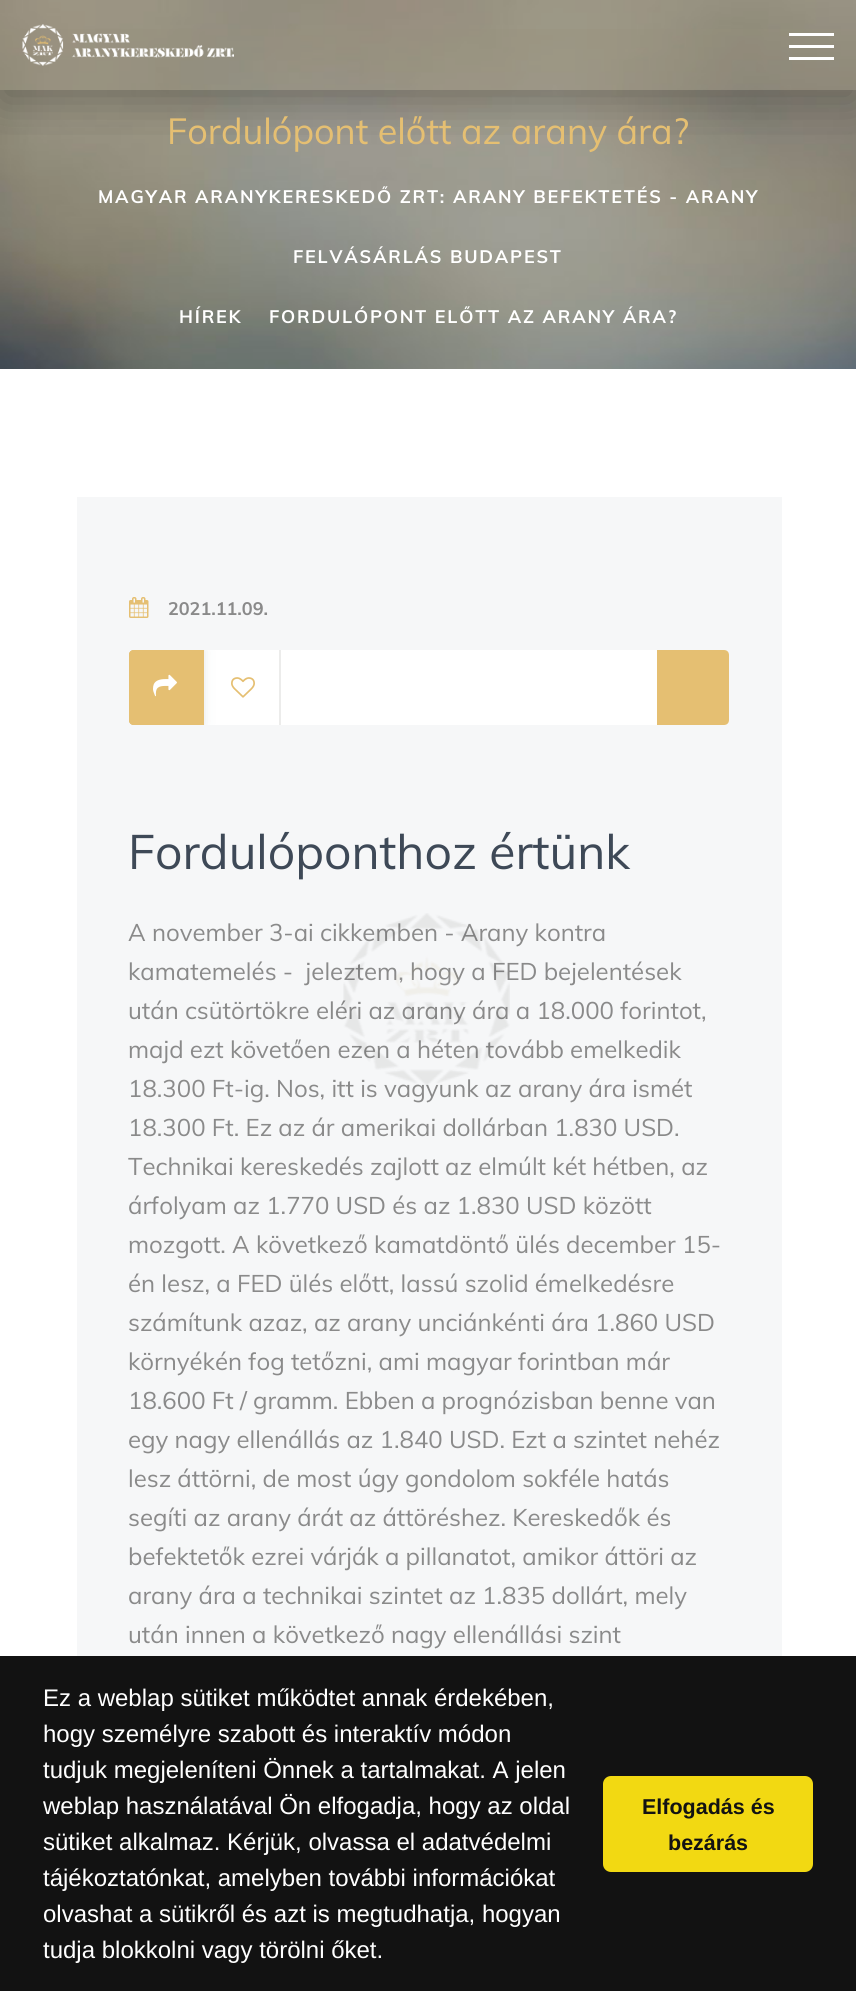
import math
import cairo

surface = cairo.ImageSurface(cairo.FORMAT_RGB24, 856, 1991)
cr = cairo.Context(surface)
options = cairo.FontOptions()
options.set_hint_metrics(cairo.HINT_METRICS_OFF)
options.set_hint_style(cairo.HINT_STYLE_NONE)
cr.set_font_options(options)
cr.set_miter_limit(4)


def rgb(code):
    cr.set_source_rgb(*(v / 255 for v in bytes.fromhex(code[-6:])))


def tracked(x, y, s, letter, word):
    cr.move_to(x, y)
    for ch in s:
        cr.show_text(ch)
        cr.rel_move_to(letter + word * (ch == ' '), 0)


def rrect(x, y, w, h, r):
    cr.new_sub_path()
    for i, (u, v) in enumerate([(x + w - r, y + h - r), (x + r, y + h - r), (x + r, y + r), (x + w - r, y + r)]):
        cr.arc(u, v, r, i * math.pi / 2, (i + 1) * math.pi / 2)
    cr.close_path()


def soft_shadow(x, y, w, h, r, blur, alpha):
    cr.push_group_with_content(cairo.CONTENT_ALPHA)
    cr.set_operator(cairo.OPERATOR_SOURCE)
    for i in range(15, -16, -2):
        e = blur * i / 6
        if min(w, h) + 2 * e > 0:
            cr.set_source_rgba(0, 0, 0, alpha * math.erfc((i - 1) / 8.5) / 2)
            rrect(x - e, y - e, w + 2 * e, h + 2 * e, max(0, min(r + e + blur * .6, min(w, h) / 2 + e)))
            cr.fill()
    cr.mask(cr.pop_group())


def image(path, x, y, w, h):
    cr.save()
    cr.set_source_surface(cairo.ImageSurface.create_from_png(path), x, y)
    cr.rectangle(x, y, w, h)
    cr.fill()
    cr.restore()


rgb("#ffffff")
cr.paint()
image("img/2.png", 0, 0, 856, 369)
cr.save()
cr.rectangle(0, 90, 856, 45)
cr.clip()
rgb("#121212")
soft_shadow(0, 11, 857, 90, 0, 22.5, 0.3)
cr.restore()
cr.set_source_rgba(0.596, 0.569, 0.494, 0.3)
cr.rectangle(0, 29, 856, 61)
cr.fill()
image("img/1.png", 22, 24, 212, 42)
for x, y, w, h, color in [
    (789, 45, 45, 3, "#ffffff"),
    (789, 33, 45, 3, "#ffffff"),
    (789, 57, 45, 3, "#ffffff"),
    (77, 497, 705, 1159, "#f6f7f8"),
]:
    rgb(color)
    cr.rectangle(x, y, w, h)
    cr.fill()
image("img/3.png", 129, 597, 20, 21)
rgb("#ffffff")
rrect(129, 650, 600, 75, 5)
cr.fill()
cr.save()
rrect(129, 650, 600, 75, 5)
cr.clip()
rgb("#3e4957")
soft_shadow(122, 650, 75, 75, 0, 7.5, 0.4)
cr.restore()
rgb("#e5bf72")
cr.new_path()
cr.move_to(134, 650)
cr.line_to(204, 650)
cr.line_to(204, 725)
cr.line_to(134, 725)
cr.curve_to(131, 725, 129, 723, 129, 720)
cr.line_to(129, 655)
cr.curve_to(129, 652, 131, 650, 134, 650)
cr.close_path()
cr.fill()
cr.set_fill_rule(cairo.FILL_RULE_EVEN_ODD)
cr.new_path()
cr.move_to(134, 650)
cr.curve_to(131, 650, 129, 652, 129, 655)
cr.line_to(129, 720)
cr.curve_to(129, 723, 131, 725, 134, 725)
cr.line_to(204, 725)
cr.line_to(204, 650)
cr.close_path()
cr.move_to(131, 652)
cr.line_to(131, 723)
cr.line_to(202, 723)
cr.line_to(202, 652)
cr.close_path()
cr.fill()
image("img/4.png", 153, 674, 24, 23)
rgb("#ececeb")
cr.rectangle(279, 650, 2, 75)
cr.fill()
image("img/5.png", 231, 677, 24, 21)
rgb("#e5bf72")
cr.new_path()
cr.move_to(657, 650)
cr.line_to(724, 650)
cr.curve_to(727, 650, 729, 652, 729, 655)
cr.line_to(729, 720)
cr.curve_to(729, 723, 727, 725, 724, 725)
cr.line_to(657, 725)
cr.close_path()
cr.fill()
rgb("#121212")
cr.rectangle(0, 1656, 856, 335)
cr.fill()
rgb("#f2d912")
rrect(603, 1776, 210, 96, 8)
cr.fill()
cr.select_font_face("Muli")
cr.set_font_size(36)
rgb("#e5bf72")
cr.move_to(167, 144)
cr.show_text("Fordulópont előtt az arany ára?")
cr.select_font_face("Muli", cairo.FONT_SLANT_NORMAL, cairo.FONT_WEIGHT_BOLD)
cr.set_font_size(18)
rgb("#ffffff")
for x, y, s in [
    (98, 203, "MAGYAR ARANYKERESKEDŐ ZRT: ARANY BEFEKTETÉS - ARANY"),
    (293, 263, "FELVÁSÁRLÁS BUDAPEST"),
    (179, 323, "HÍREK"),
    (269, 323, "FORDULÓPONT ELŐTT AZ ARANY ÁRA?"),
]:
    tracked(x, y, s, 1.8, 0)
rgb("#8a8a8a")
cr.move_to(168, 615)
cr.show_text("2021.11.09.")
cr.select_font_face("Muli")
cr.set_font_size(48)
rgb("#3e4957")
cr.move_to(128, 869)
cr.show_text("Fordulóponthoz értünk")
cr.set_font_size(24)
rgb("#8a8a8a")
for x, y, s in [
    (128, 941, "A november 3-ai cikkemben - Arany kontra"),
    (128, 980, "kamatemelés -  jeleztem, hogy a FED bejelentések"),
    (128, 1019, "után csütörtökre eléri az arany ára a 18.000 forintot,"),
    (128, 1058, "majd ezt követően ezen a héten tovább emelkedik"),
    (128, 1097, "18.300 Ft-ig. Nos, itt is vagyunk az arany ára ismét"),
    (128, 1136, "18.300 Ft. Ez az ár amerikai dollárban 1.830 USD."),
    (128, 1175, "Technikai kereskedés zajlott az elmúlt két hétben, az"),
    (128, 1214, "árfolyam az 1.770 USD és az 1.830 USD között"),
    (128, 1253, "mozgott. A következő kamatdöntő ülés december 15-"),
    (128, 1292, "én lesz, a FED ülés előtt, lassú szolid émelkedésre"),
    (128, 1331, "számítunk azaz, az arany unciánkénti ára 1.860 USD"),
    (128, 1370, "környékén fog tetőzni, ami magyar forintban már"),
    (128, 1409, "18.600 Ft / gramm. Ebben a prognózisban benne van"),
    (128, 1448, "egy nagy ellenállás az 1.840 USD. Ezt a szintet nehéz"),
    (128, 1487, "lesz áttörni, de most úgy gondolom sokféle hatás"),
    (128, 1526, "segíti az arany árát az áttöréshez. Kereskedők és"),
    (128, 1565, "befektetők ezrei várják a pillanatot, amikor áttöri az"),
    (128, 1604, "arany ára a technikai szintet az 1.835 dollárt, mely"),
    (128, 1643, "után innen a következő nagy ellenállási szint"),
]:
    cr.move_to(x, y)
    cr.show_text(s)
image("img/6.png", 343, 913, 167, 173)
cr.select_font_face("Liberation Sans")
rgb("#ffffff")
for x, y, s in [
    (43, 1706, "Ez a weblap sütiket működtet annak érdekében,"),
    (43, 1742, "hogy személyre szabott és interaktív módon"),
    (43, 1778, "tudjuk megjeleníteni Önnek a tartalmakat. A jelen"),
    (43, 1814, "weblap használatával Ön elfogadja, hogy az oldal"),
    (43, 1850, "sütiket alkalmaz. Kérjük, olvassa el adatvédelmi"),
    (43, 1886, "tájékoztatónkat, amelyben további információkat"),
    (43, 1922, "olvashat a sütikről és azt is megtudhatja, hogyan"),
    (43, 1958, "tudja blokkolni vagy törölni őket."),
]:
    cr.move_to(x, y)
    cr.show_text(s)
cr.select_font_face("Liberation Sans", cairo.FONT_SLANT_NORMAL, cairo.FONT_WEIGHT_BOLD)
cr.set_font_size(21.5)
rgb("#121212")
cr.move_to(642, 1814)
cr.show_text("Elfogadás és")
cr.move_to(668, 1850)
cr.show_text("bezárás")
surface.write_to_png("page.png")
